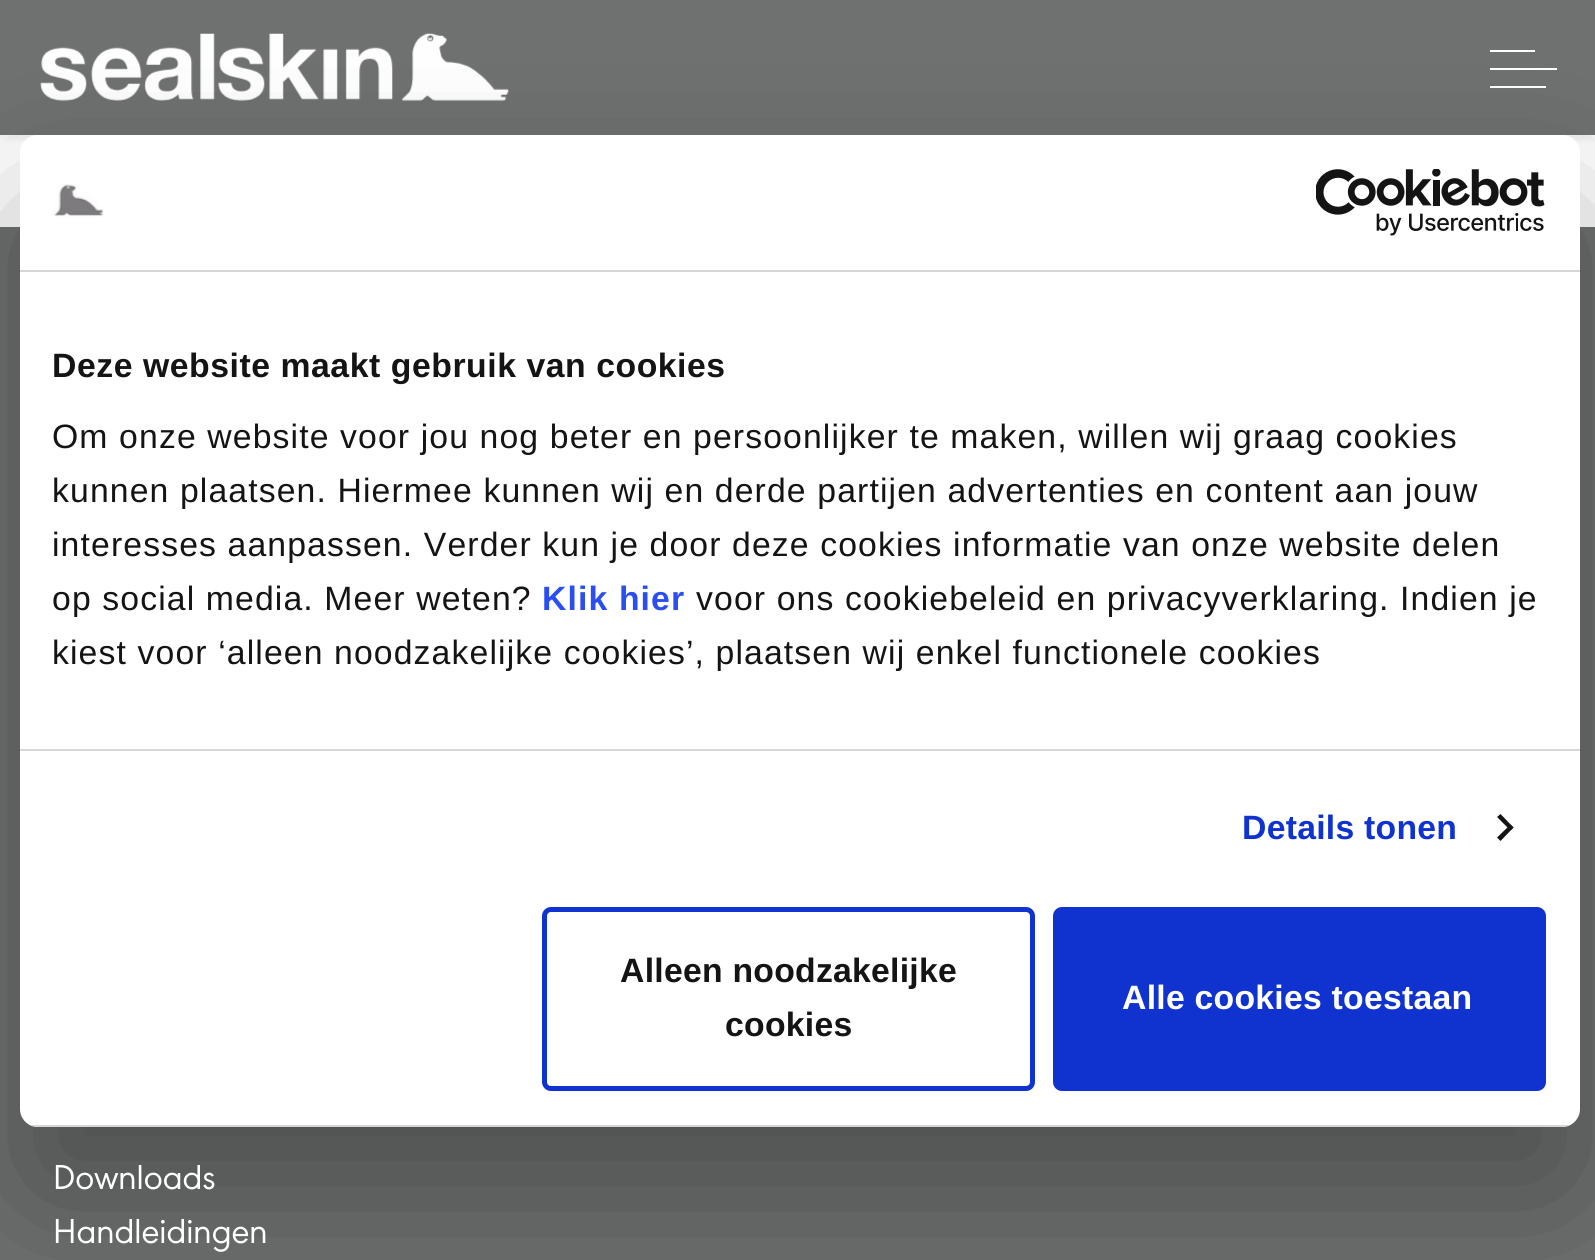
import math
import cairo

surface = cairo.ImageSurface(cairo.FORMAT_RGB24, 1595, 1260)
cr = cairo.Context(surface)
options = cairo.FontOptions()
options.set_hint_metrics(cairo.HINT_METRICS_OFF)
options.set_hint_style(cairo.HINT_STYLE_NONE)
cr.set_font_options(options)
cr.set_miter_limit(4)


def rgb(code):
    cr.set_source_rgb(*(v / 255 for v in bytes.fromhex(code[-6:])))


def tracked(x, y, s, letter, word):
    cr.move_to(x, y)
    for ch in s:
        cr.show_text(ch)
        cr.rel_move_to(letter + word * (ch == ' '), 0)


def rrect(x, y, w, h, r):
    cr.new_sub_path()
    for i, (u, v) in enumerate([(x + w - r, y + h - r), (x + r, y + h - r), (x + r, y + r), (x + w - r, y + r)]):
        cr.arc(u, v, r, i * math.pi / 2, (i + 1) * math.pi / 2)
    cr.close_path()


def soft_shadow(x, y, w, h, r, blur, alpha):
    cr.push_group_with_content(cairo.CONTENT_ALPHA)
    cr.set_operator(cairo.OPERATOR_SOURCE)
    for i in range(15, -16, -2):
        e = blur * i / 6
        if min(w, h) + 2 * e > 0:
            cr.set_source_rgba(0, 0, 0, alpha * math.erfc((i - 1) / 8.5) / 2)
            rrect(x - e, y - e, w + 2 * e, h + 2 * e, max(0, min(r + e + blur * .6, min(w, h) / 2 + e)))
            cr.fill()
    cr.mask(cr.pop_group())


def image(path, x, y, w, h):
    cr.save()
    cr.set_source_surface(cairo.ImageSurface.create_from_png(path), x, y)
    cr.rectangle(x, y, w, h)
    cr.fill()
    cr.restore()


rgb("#ffffff")
cr.paint()
rgb("#000000")
soft_shadow(0, 5, 1595, 135, 0, 2, 0.05)
rgb("#6f7170")
cr.rectangle(0, 0, 1595, 135)
cr.fill()
image("img/3.png", 40, 33, 469, 68)
for x, y, w, h, color in [
    (1490, 68, 67, 2, "#ffffff"),
    (1490, 50, 45, 2, "#ffffff"),
    (1490, 86, 56, 2, "#ffffff"),
    (0, 227, 1595, 1033, "#6f7170"),
]:
    rgb(color)
    cr.rectangle(x, y, w, h)
    cr.fill()
rgb("#000000")
soft_shadow(20, 207, 1560, 992, 18, 76.5, 0.3)
rgb("#ffffff")
rrect(20, 135, 1560, 992, 18)
cr.fill()
rgb("#d6d6d6")
cr.rectangle(20, 270, 1560, 2)
cr.fill()
image("img/1.png", 53, 184, 50, 34)
image("img/2.png", 1316, 169, 229, 67)
cr.rectangle(20, 749, 1560, 2)
cr.fill()
rgb("#141414")
cr.new_path()
cr.move_to(1500.5, 814)
cr.line_to(1513.5, 827.5)
cr.line_to(1510.5, 830.5)
cr.line_to(1497, 817)
cr.close_path()
cr.fill()
cr.new_path()
cr.move_to(1510.5, 824.5)
cr.line_to(1513.5, 827.5)
cr.line_to(1500.5, 841)
cr.line_to(1497, 837.5)
cr.close_path()
cr.fill()
cr.save()
rrect(20, 135, 1560, 992, 18)
cr.clip()
rgb("#d6d6d6")
cr.rectangle(30, 1125, 1540, 2)
cr.fill()
cr.restore()
rrect(544.5, 909.5, 488, 179, 6.5)
rgb("#1032cf")
cr.set_line_width(5)
cr.stroke()
rrect(1055.5, 909.5, 488, 179, 6.5)
cr.fill_preserve()
cr.stroke()
cr.select_font_face("Liberation Sans", cairo.FONT_SLANT_NORMAL, cairo.FONT_WEIGHT_BOLD)
cr.set_font_size(33.75)
rgb("#141414")
tracked(52, 377, "Deze website maakt gebruik van cookies", 0.55, 0)
cr.select_font_face("Liberation Sans")
for x, y, s in [
    (52, 448, "Om onze website voor jou nog beter en persoonlijker te maken, willen wij graag cookies"),
    (52, 502, "kunnen plaatsen. Hiermee kunnen wij en derde partijen advertenties en content aan jouw"),
    (52, 556, "interesses aanpassen. Verder kun je door deze cookies informatie van onze website delen"),
    (52, 610, "op social media. Meer weten?"),
]:
    tracked(x, y, s, 1.12, 0)
cr.select_font_face("Liberation Sans", cairo.FONT_SLANT_NORMAL, cairo.FONT_WEIGHT_BOLD)
rgb("#2a4eef")
tracked(542, 610, "Klik hier", 1.12, 0)
cr.select_font_face("Liberation Sans")
rgb("#141414")
tracked(696, 610, "voor ons cookiebeleid en privacyverklaring. Indien je", 1.12, 0)
tracked(52, 664, "kiest voor ‘alleen noodzakelijke cookies’, plaatsen wij enkel functionele cookies", 1.12, 0)
cr.select_font_face("Liberation Sans", cairo.FONT_SLANT_NORMAL, cairo.FONT_WEIGHT_BOLD)
rgb("#1032cf")
tracked(1242, 839, "Details tonen", 0.25, 0)
rgb("#141414")
tracked(620, 982, "Alleen noodzakelijke", 0.25, 0)
tracked(725, 1036, "cookies", 0.25, 0)
rgb("#ffffff")
tracked(1122, 1009, "Alle cookies toestaan", 0.25, 0)
cr.select_font_face("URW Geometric")
cr.set_font_size(36)
cr.move_to(53, 1189)
cr.show_text("Downloads")
cr.move_to(53, 1243)
cr.show_text("Handleidingen")
surface.write_to_png("page.png")
